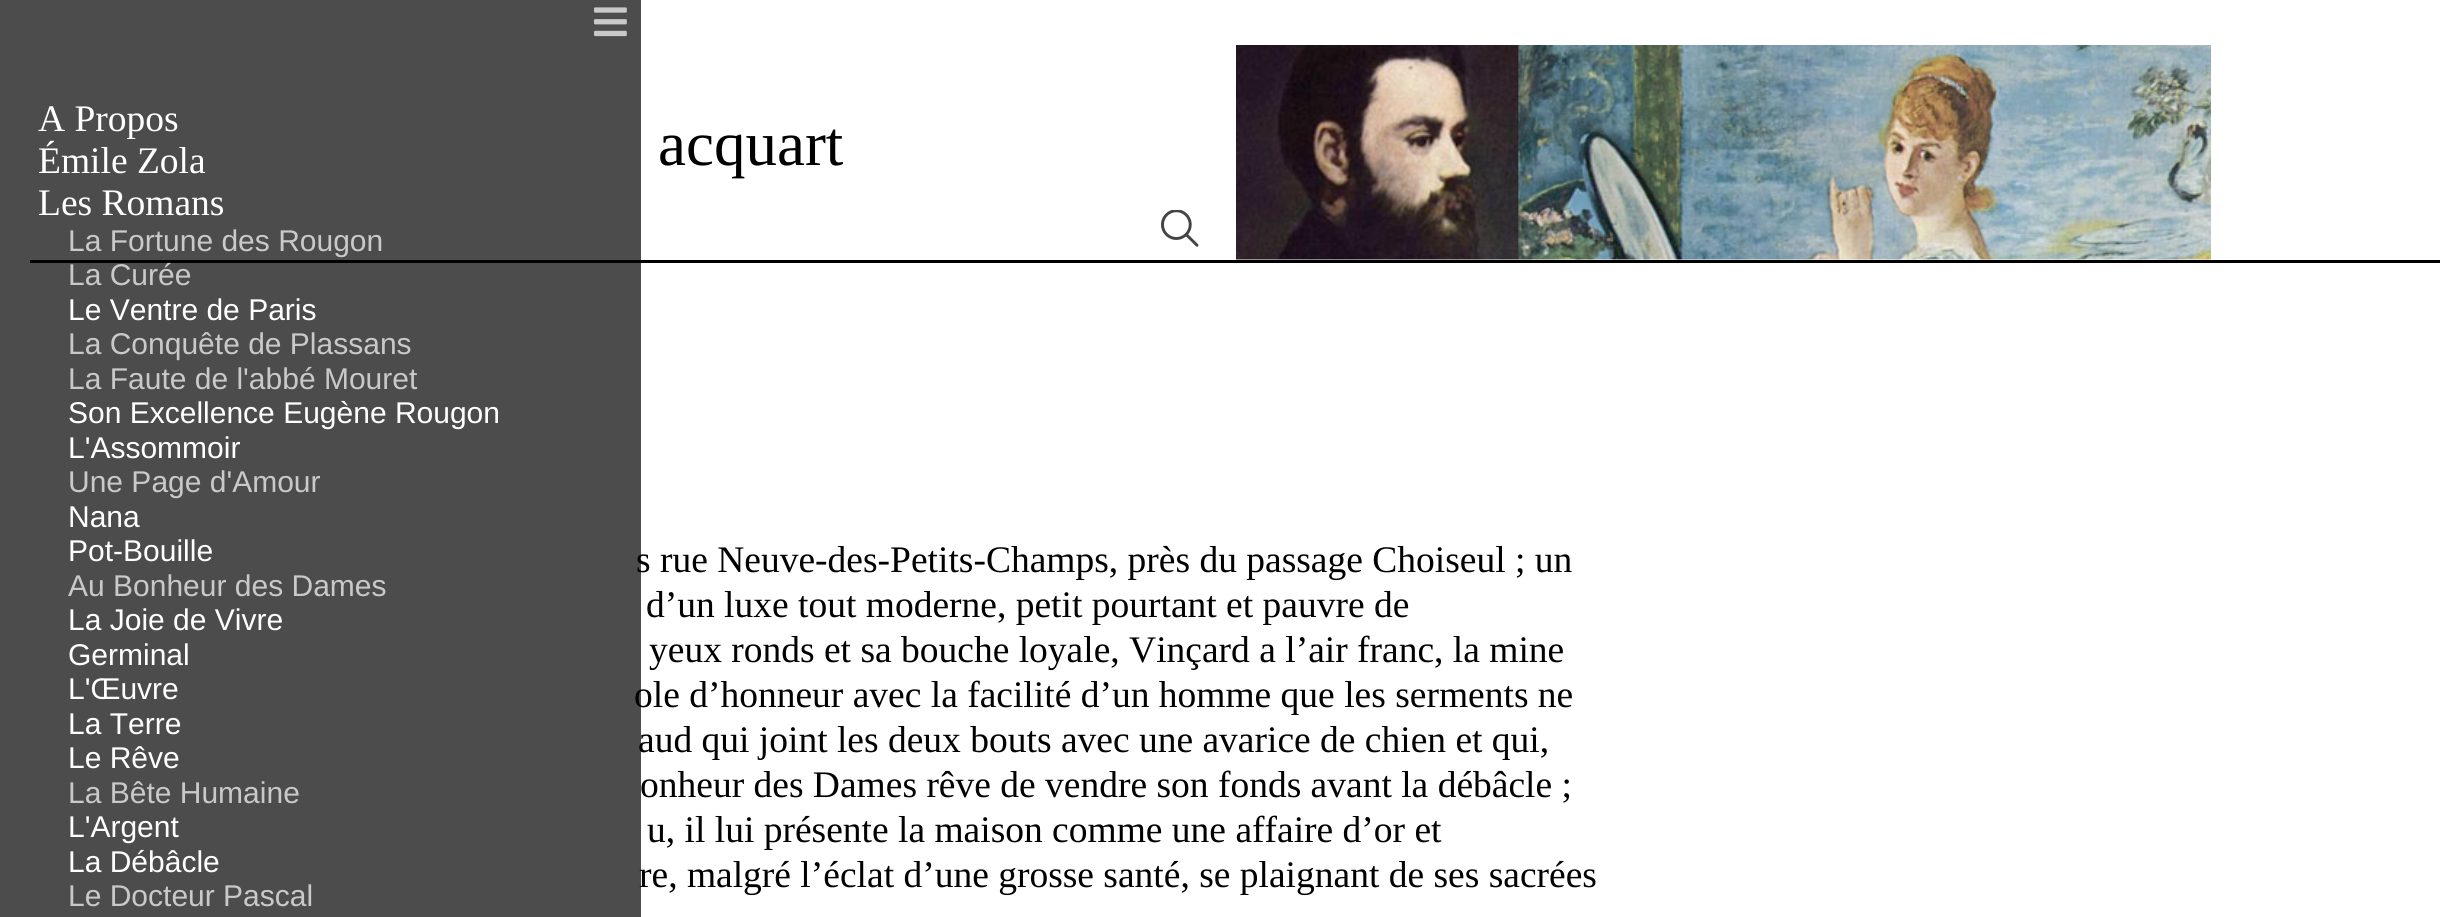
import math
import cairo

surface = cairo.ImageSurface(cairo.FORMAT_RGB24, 2440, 917)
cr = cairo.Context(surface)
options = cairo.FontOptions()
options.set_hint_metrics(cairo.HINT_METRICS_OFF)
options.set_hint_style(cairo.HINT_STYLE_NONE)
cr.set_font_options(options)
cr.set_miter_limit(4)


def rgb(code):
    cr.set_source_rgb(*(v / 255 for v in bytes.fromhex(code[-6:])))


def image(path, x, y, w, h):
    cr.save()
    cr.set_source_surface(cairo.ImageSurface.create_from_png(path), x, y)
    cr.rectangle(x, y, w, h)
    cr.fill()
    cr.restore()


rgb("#ffffff")
cr.paint()
rgb("#000000")
cr.rectangle(30, 260, 2410, 3)
cr.fill()
image("img/2.png", 1161, 210, 38, 37)
image("img/3.png", 1236, 45, 975, 215)
cr.select_font_face("Liberation Serif")
cr.set_font_size(63)
cr.move_to(658, 165)
cr.show_text("acquart")
cr.set_font_size(37.5)
for x, y, s in [
    (636, 572, "s rue Neuve-des-Petits-Champs, près du passage Choiseul ; un"),
    (646, 617, "d’un luxe tout moderne, petit pourtant et pauvre de"),
    (649, 662, "yeux ronds et sa bouche loyale, Vinçard a l’air franc, la mine"),
    (634, 707, "ole d’honneur avec la facilité d’un homme que les serments ne"),
    (638, 752, "aud qui joint les deux bouts avec une avarice de chien et qui,"),
    (640, 797, "onheur des Dames rêve de vendre son fonds avant la débâcle ;"),
    (647, 842, "u, il lui présente la maison comme une affaire d’or et"),
    (639, 887, "re, malgré l’éclat d’une grosse santé, se plaignant de ses sacrées"),
]:
    cr.move_to(x, y)
    cr.show_text(s)
cr.set_source_rgba(0, 0, 0, 0.7)
cr.rectangle(0, 0, 641, 917)
cr.fill()
image("img/1.png", 594, 7, 33, 30)
cr.select_font_face("Liberation Sans")
cr.set_font_size(30)
rgb("#c9c9c9")
cr.move_to(68, 906)
cr.show_text("Le Docteur Pascal")
rgb("#ffffff")
cr.move_to(68, 872)
cr.show_text("La Débâcle")
cr.move_to(68, 837)
cr.show_text("L'Argent")
rgb("#c9c9c9")
cr.move_to(68, 803)
cr.show_text("La Bête Humaine")
rgb("#ffffff")
for x, y, s in [
    (68, 768, "Le Rêve"),
    (68, 734, "La Terre"),
    (68, 699, "L'Œuvre"),
    (68, 665, "Germinal"),
    (68, 630, "La Joie de Vivre"),
]:
    cr.move_to(x, y)
    cr.show_text(s)
rgb("#c9c9c9")
cr.move_to(68, 596)
cr.show_text("Au Bonheur des Dames")
rgb("#ffffff")
cr.move_to(68, 561)
cr.show_text("Pot-Bouille")
cr.move_to(68, 527)
cr.show_text("Nana")
rgb("#c9c9c9")
cr.move_to(68, 492)
cr.show_text("Une Page d'Amour")
rgb("#ffffff")
cr.move_to(68, 458)
cr.show_text("L'Assommoir")
cr.move_to(68, 423)
cr.show_text("Son Excellence Eugène Rougon")
rgb("#c9c9c9")
cr.move_to(68, 389)
cr.show_text("La Faute de l'abbé Mouret")
cr.move_to(68, 354)
cr.show_text("La Conquête de Plassans")
rgb("#ffffff")
cr.move_to(68, 320)
cr.show_text("Le Ventre de Paris")
rgb("#c9c9c9")
cr.move_to(68, 285)
cr.show_text("La Curée")
cr.move_to(68, 251)
cr.show_text("La Fortune des Rougon")
cr.select_font_face("Liberation Serif")
cr.set_font_size(37.5)
rgb("#ffffff")
for x, y, s in [
    (38, 215, "Les Romans"),
    (38, 173, "Émile Zola"),
    (38, 131, "A Propos"),
]:
    cr.move_to(x, y)
    cr.show_text(s)
surface.write_to_png("page.png")
